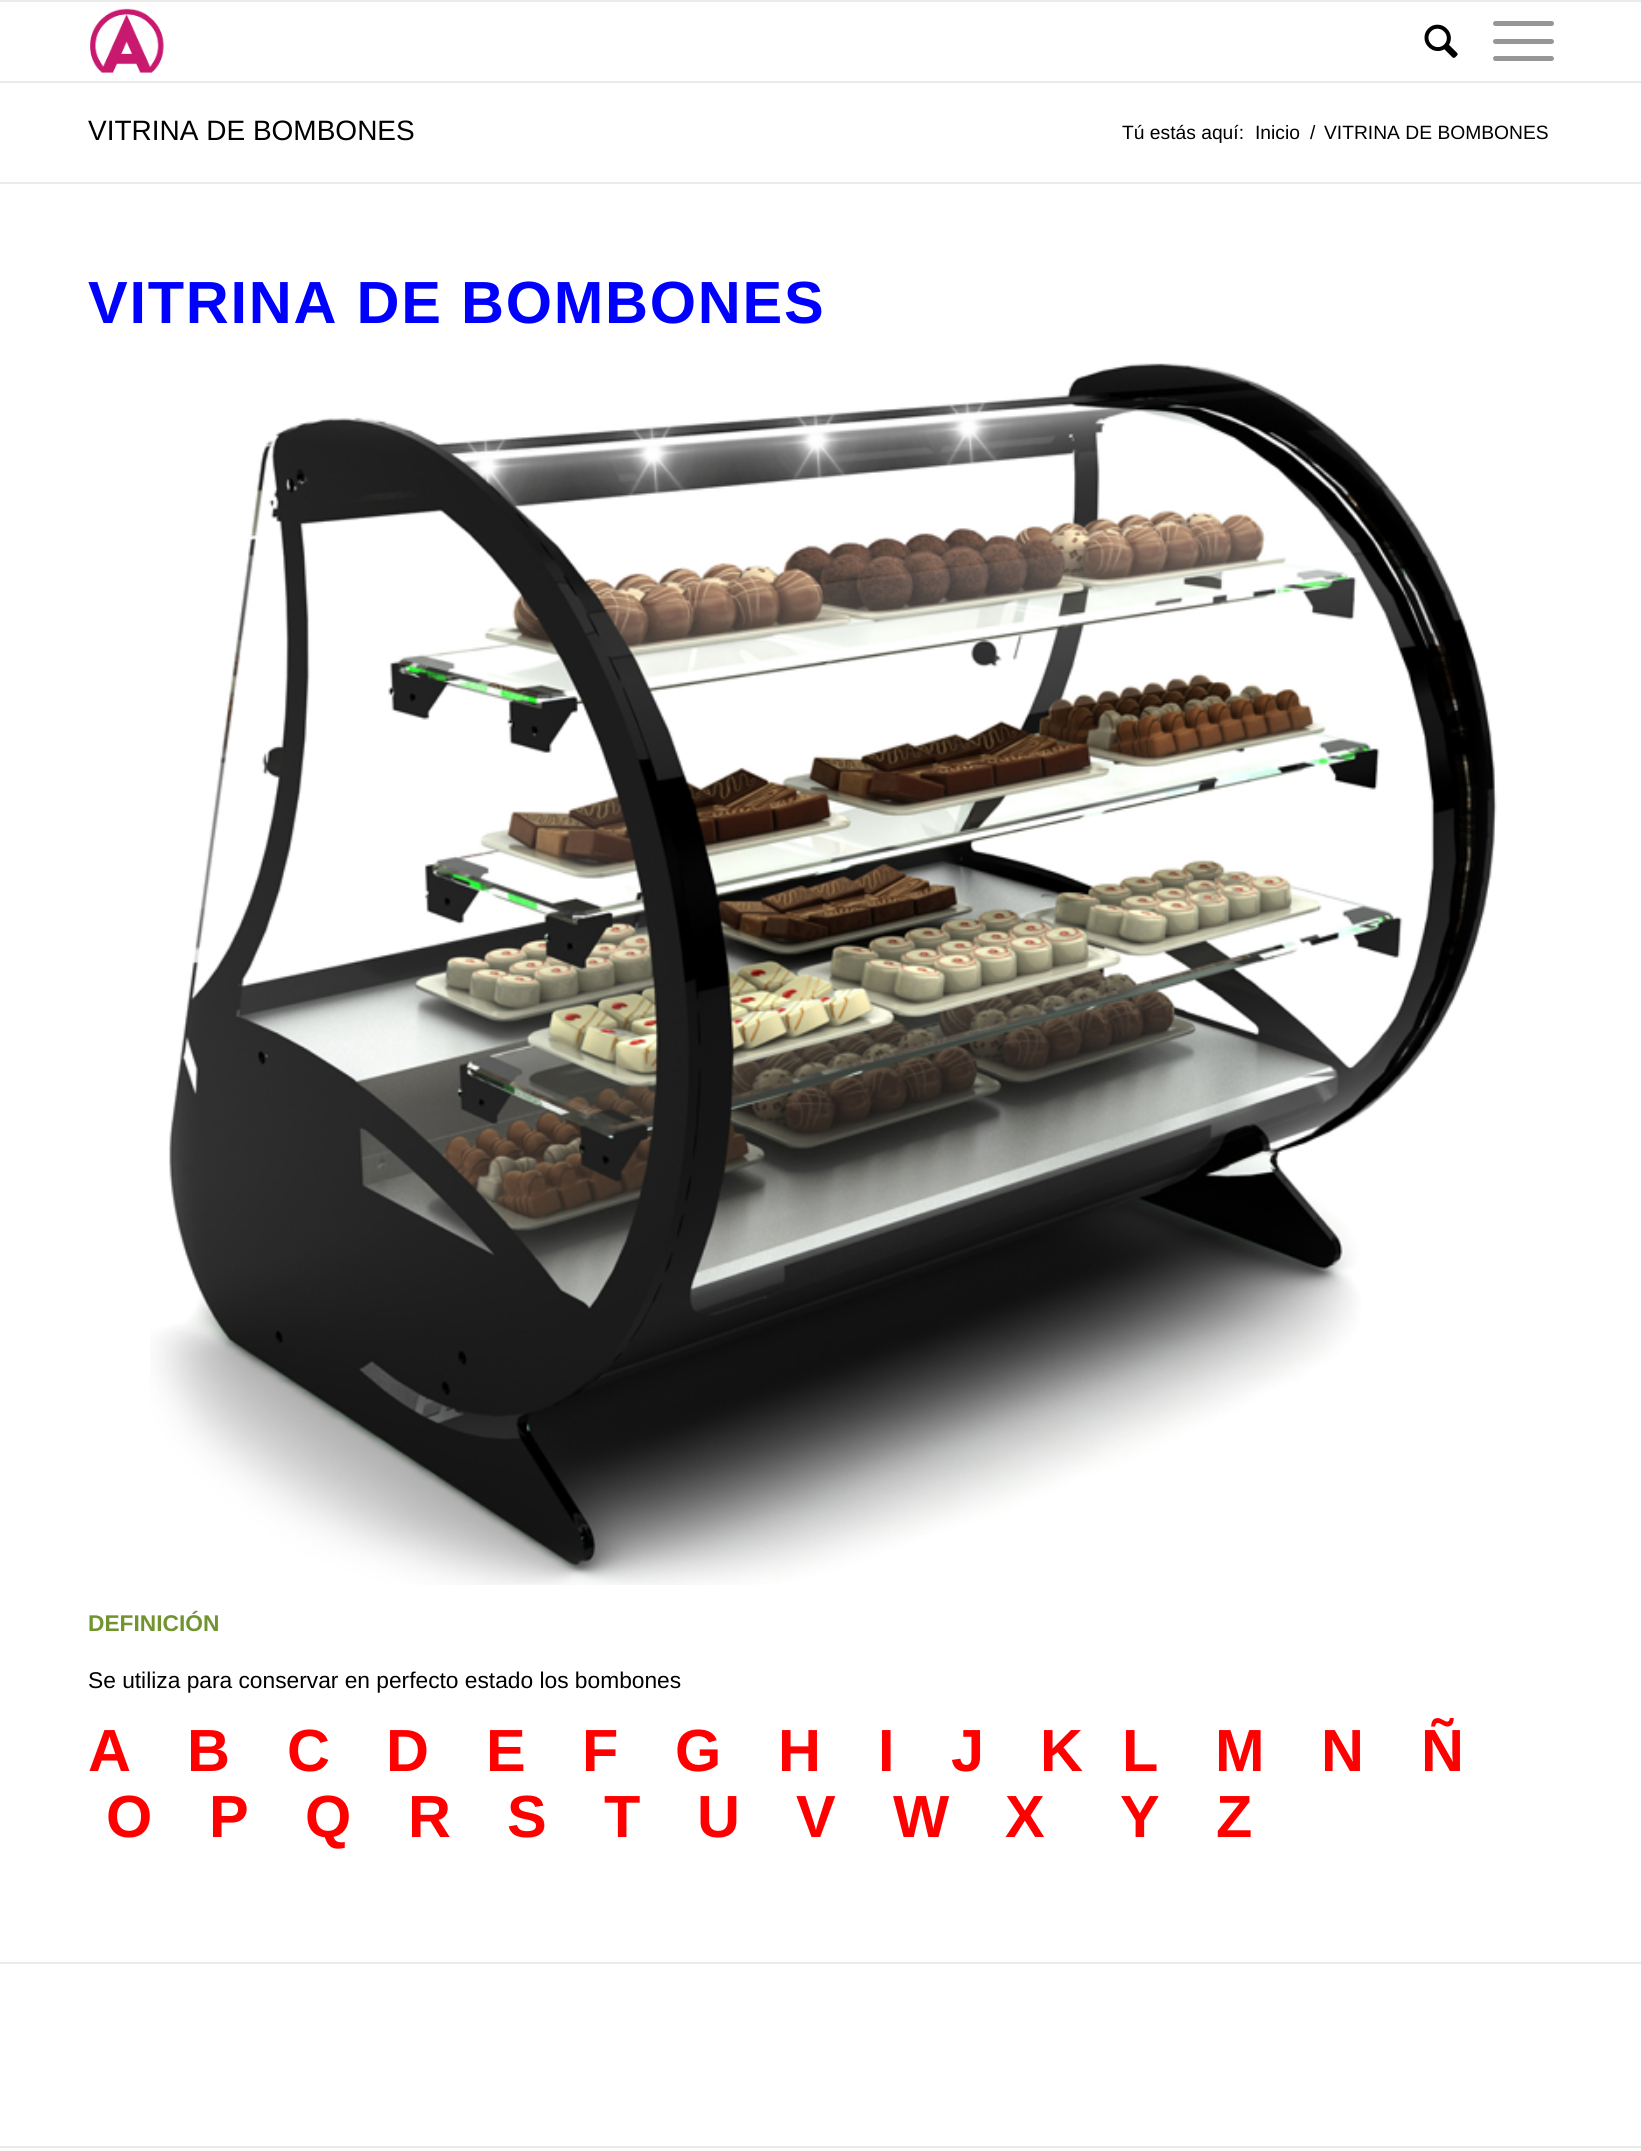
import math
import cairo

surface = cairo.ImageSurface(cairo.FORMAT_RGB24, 1641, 2151)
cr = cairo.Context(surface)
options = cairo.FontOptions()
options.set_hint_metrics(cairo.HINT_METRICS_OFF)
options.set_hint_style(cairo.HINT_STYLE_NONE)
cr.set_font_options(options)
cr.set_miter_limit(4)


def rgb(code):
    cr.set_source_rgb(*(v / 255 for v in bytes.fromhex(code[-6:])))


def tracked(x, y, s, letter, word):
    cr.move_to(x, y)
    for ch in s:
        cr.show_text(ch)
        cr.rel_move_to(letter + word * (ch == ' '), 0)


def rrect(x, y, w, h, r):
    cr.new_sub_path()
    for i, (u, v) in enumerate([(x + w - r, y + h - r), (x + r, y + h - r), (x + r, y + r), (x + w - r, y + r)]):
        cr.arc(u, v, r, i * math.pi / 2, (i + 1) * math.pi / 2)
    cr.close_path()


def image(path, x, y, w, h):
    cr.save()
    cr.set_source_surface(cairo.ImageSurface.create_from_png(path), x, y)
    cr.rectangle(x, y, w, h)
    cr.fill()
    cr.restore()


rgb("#ffffff")
cr.paint()
rgb("#ebebeb")
cr.rectangle(0, 0, 1641, 2)
cr.fill()
cr.rectangle(0, 81, 1641, 2)
cr.fill()
image("img/1.png", 90, 8, 74, 65)
image("img/2.png", 1424, 24, 34, 34)
rgb("#969696")
rrect(1493, 39, 61, 5, 2.5)
cr.fill()
rrect(1493, 21, 61, 5, 2.5)
cr.fill()
rrect(1493, 56, 61, 5, 2.5)
cr.fill()
rgb("#ebebeb")
cr.rectangle(0, 182, 1641, 2)
cr.fill()
image("img/3.png", 150, 363, 1347, 1222)
cr.rectangle(0, 1962, 1641, 2)
cr.fill()
cr.rectangle(0, 2146, 1641, 2)
cr.fill()
cr.select_font_face("Liberation Sans")
cr.set_font_size(28)
rgb("#000000")
cr.move_to(88, 140)
cr.show_text("VITRINA DE BOMBONES")
cr.set_font_size(19.25)
for x, y, s in [
    (1122, 139, "Tú estás aquí:"),
    (1255, 139, "Inicio"),
    (1310, 139, "/"),
    (1324, 139, "VITRINA DE BOMBONES"),
]:
    cr.move_to(x, y)
    cr.show_text(s)
cr.select_font_face("Liberation Sans", cairo.FONT_SLANT_NORMAL, cairo.FONT_WEIGHT_BOLD)
cr.set_font_size(59.5)
rgb("#0000ff")
tracked(88, 323, "VITRINA DE BOMBONES", 1.75, 0)
cr.set_font_size(22.75)
rgb("#719430")
cr.move_to(88, 1631)
cr.show_text("DEFINICIÓN")
cr.select_font_face("Liberation Sans")
rgb("#000000")
cr.move_to(88, 1688)
cr.show_text("Se utiliza para conservar en perfecto estado los bombones")
cr.select_font_face("Liberation Sans", cairo.FONT_SLANT_NORMAL, cairo.FONT_WEIGHT_BOLD)
cr.set_font_size(59.5)
rgb("#ff0000")
for x, y, s in [
    (88, 1771, "A"),
    (187, 1771, "B"),
    (287, 1771, "C"),
    (386, 1771, "D"),
    (486, 1771, "E"),
    (582, 1771, "F"),
    (675, 1771, "G"),
    (778, 1771, "H"),
    (878, 1771, "I"),
    (951, 1771, "J"),
    (1040, 1771, "K"),
    (1122, 1771, "L"),
    (1215, 1771, "M"),
    (1321, 1771, "N"),
    (1421, 1771, "Ñ"),
    (106, 1837, "O"),
    (209, 1837, "P"),
    (305, 1837, "Q"),
    (408, 1837, "R"),
    (507, 1837, "S"),
    (604, 1837, "T"),
    (697, 1837, "U"),
    (796, 1837, "V"),
    (893, 1837, "W"),
    (1005, 1837, "X"),
    (1120, 1837, "Y"),
    (1216, 1837, "Z"),
]:
    tracked(x, y, s, 1.75, 0)
surface.write_to_png("page.png")
